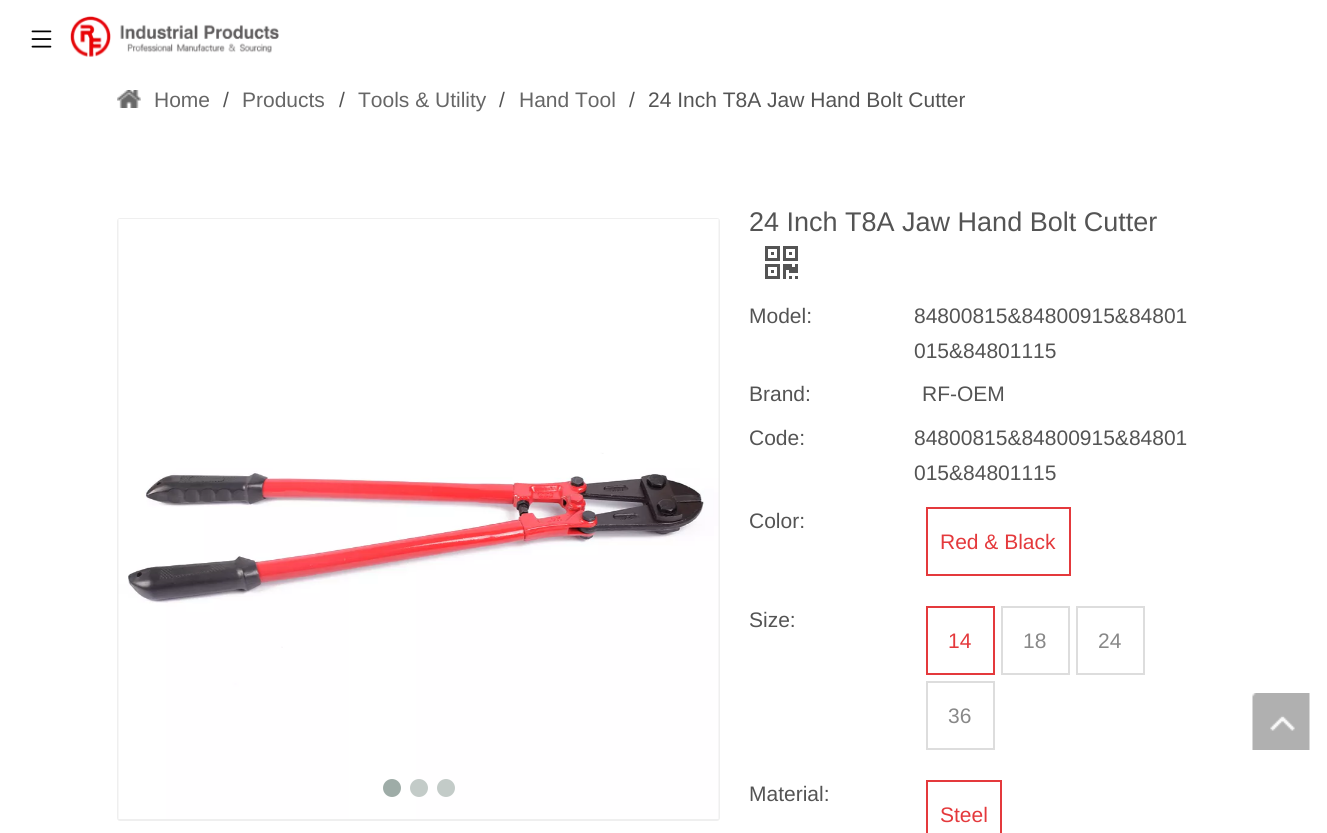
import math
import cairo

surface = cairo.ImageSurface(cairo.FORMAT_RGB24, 1327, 833)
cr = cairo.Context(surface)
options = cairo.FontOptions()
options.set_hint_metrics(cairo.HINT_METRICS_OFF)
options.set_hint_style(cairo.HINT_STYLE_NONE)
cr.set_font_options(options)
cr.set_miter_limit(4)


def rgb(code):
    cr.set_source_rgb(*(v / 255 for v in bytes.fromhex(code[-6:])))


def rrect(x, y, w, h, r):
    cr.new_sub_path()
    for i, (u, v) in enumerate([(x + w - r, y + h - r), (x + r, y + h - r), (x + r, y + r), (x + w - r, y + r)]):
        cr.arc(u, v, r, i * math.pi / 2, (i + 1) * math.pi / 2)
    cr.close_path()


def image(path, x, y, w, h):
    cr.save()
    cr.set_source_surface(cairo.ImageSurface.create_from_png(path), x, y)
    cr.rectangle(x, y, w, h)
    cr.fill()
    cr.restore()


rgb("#ffffff")
cr.paint()
image("img/1.png", 31, 30, 21, 18)
image("img/2.png", 70, 16, 209, 41)
image("img/3.png", 117, 90, 24, 18)
rrect(118, 219, 601, 601, 2)
rgb("#efefef")
cr.stroke()
image("img/4.png", 118, 219, 601, 600)
rgb("#9eaca7")
cr.arc(392, 788, 9, 0, 2 * math.pi)
cr.fill()
rgb("#c3cbc8")
cr.arc(419, 788, 9, 0, 2 * math.pi)
cr.fill()
cr.arc(446, 788, 9, 0, 2 * math.pi)
cr.fill()
image("img/5.png", 765, 246, 33, 33)
cr.rectangle(927, 508, 143, 67)
rgb("#e4393c")
cr.stroke()
cr.rectangle(927, 607, 67, 67)
cr.stroke()
cr.rectangle(1002, 607, 67, 67)
rgb("#dddddd")
cr.stroke()
cr.rectangle(1077, 607, 67, 67)
cr.stroke()
cr.rectangle(927, 682, 67, 67)
cr.stroke()
cr.rectangle(927, 781, 74, 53)
rgb("#e4393c")
cr.stroke()
image("img/6.png", 1252, 693, 58, 57)
cr.select_font_face("Liberation Sans")
cr.set_font_size(21)
rgb("#666666")
cr.move_to(154, 107)
cr.show_text("Home")
rgb("#545454")
cr.move_to(223, 107)
cr.show_text("/")
rgb("#666666")
cr.move_to(242, 107)
cr.show_text("Products")
rgb("#545454")
cr.move_to(339, 107)
cr.show_text("/")
rgb("#666666")
cr.move_to(358, 107)
cr.show_text("Tools & Utility")
rgb("#545454")
cr.move_to(499, 107)
cr.show_text("/")
rgb("#666666")
cr.move_to(519, 107)
cr.show_text("Hand Tool")
rgb("#545454")
cr.move_to(629, 107)
cr.show_text("/")
cr.move_to(648, 107)
cr.show_text("24 Inch T8A Jaw Hand Bolt Cutter")
cr.set_font_size(27)
cr.move_to(749, 231)
cr.show_text("24 Inch T8A Jaw Hand Bolt Cutter")
cr.set_font_size(21)
for x, y, s in [
    (749, 323, "Model:"),
    (914, 323, "84800815&84800915&84801"),
    (914, 358, "015&84801115"),
    (749, 401, "Brand:"),
    (922, 401, "RF-OEM"),
    (749, 445, "Code:"),
    (914, 445, "84800815&84800915&84801"),
    (914, 480, "015&84801115"),
    (749, 528, "Color:"),
]:
    cr.move_to(x, y)
    cr.show_text(s)
rgb("#e4393c")
cr.move_to(940, 549)
cr.show_text("Red & Black")
rgb("#545454")
cr.move_to(749, 627)
cr.show_text("Size:")
rgb("#e4393c")
cr.move_to(948, 648)
cr.show_text("14")
rgb("#888888")
for x, y, s in [
    (1023, 648, "18"),
    (1098, 648, "24"),
    (948, 723, "36"),
]:
    cr.move_to(x, y)
    cr.show_text(s)
rgb("#545454")
cr.move_to(749, 801)
cr.show_text("Material:")
rgb("#e4393c")
cr.move_to(940, 822)
cr.show_text("Steel")
surface.write_to_png("page.png")
